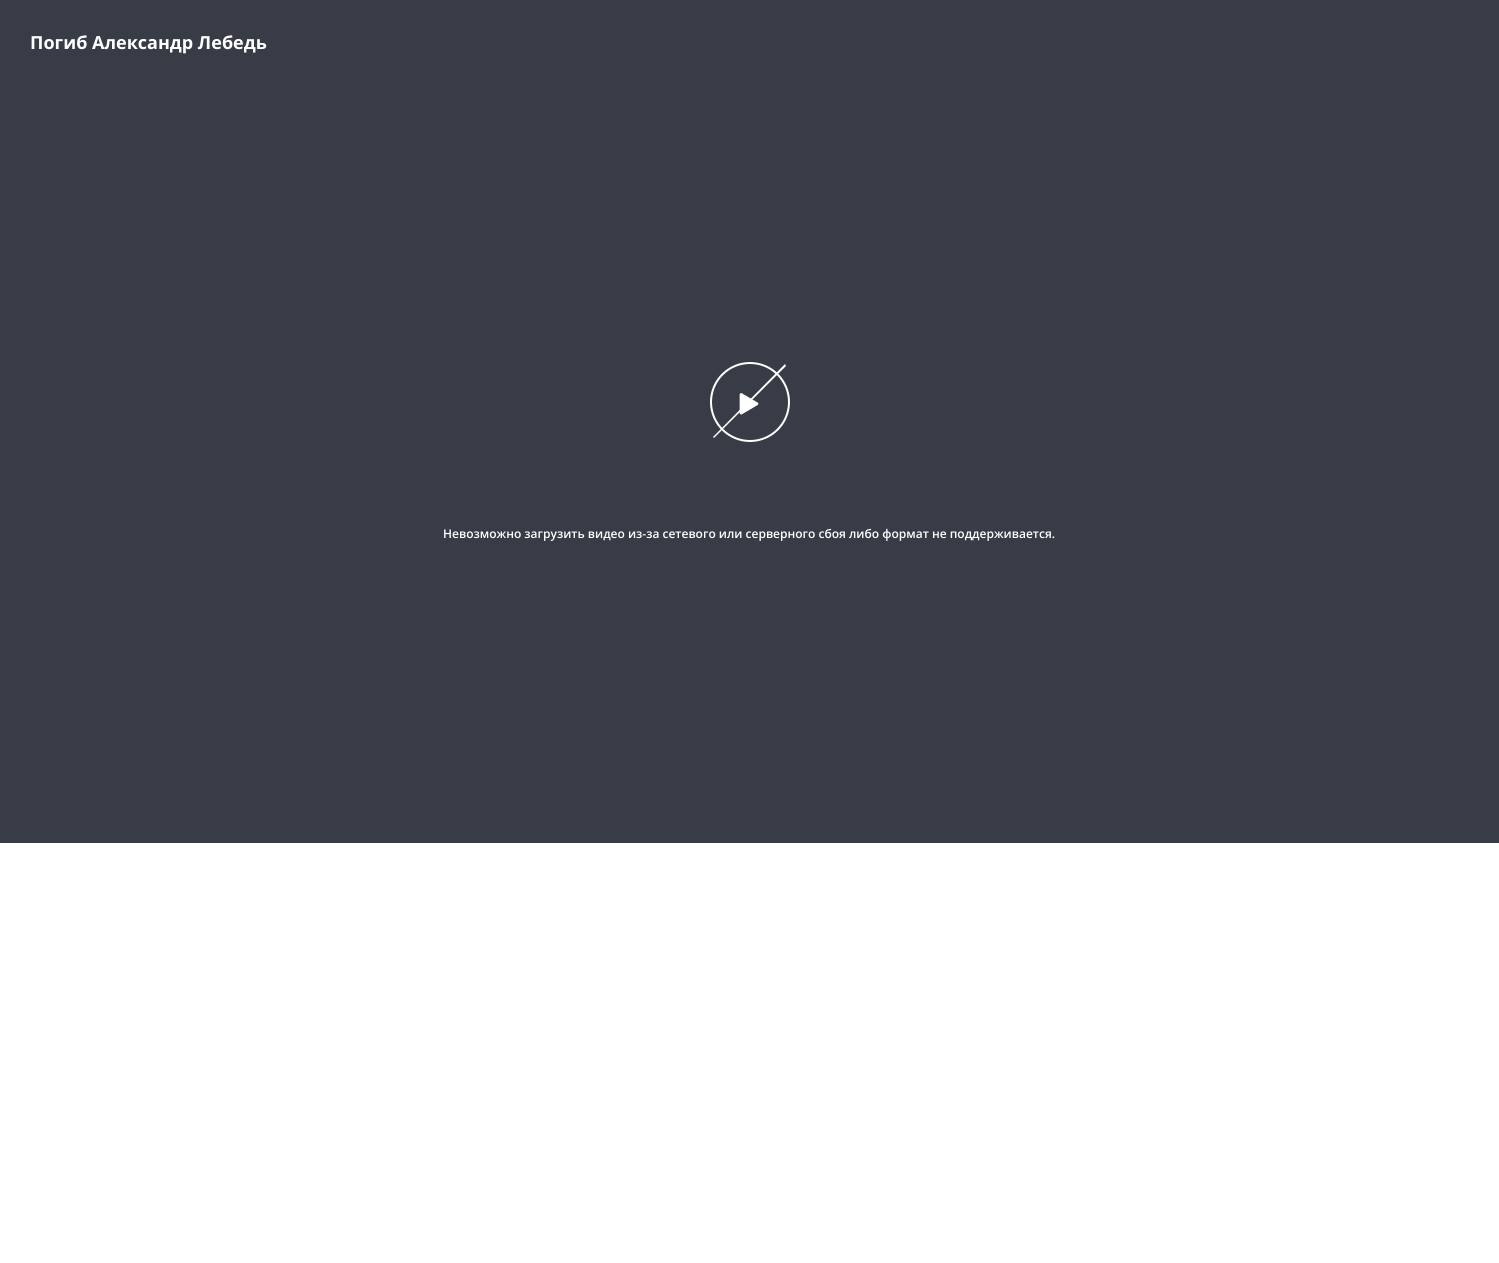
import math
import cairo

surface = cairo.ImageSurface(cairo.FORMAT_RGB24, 1499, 1263)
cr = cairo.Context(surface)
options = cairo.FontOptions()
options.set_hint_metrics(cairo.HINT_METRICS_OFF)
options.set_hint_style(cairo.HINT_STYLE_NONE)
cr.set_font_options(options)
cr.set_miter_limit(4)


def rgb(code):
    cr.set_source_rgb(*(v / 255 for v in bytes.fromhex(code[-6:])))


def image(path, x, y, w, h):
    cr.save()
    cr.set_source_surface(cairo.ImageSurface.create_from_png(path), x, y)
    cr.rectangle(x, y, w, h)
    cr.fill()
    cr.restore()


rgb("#ffffff")
cr.paint()
rgb("#373c47")
cr.rectangle(0, 0, 1499, 843)
cr.fill()
cr.arc(750, 402, 39, 0, 2 * math.pi)
rgb("#ffffff")
cr.stroke()
image("img/1.png", 739, 393, 20, 22)
cr.new_path()
cr.move_to(785, 364)
cr.line_to(786, 366)
cr.line_to(714, 438)
cr.line_to(713, 437)
cr.close_path()
cr.fill()
cr.select_font_face("Open Sans", cairo.FONT_SLANT_NORMAL, cairo.FONT_WEIGHT_BOLD)
cr.set_font_size(18)
cr.move_to(30, 49)
cr.show_text("Погиб Александр Лебедь")
cr.select_font_face("Open Sans SemiBold")
cr.set_font_size(12)
cr.move_to(443, 538)
cr.show_text("Невозможно загрузить видео из-за сетевого или серверного сбоя либо формат не поддерживается.")
surface.write_to_png("page.png")
